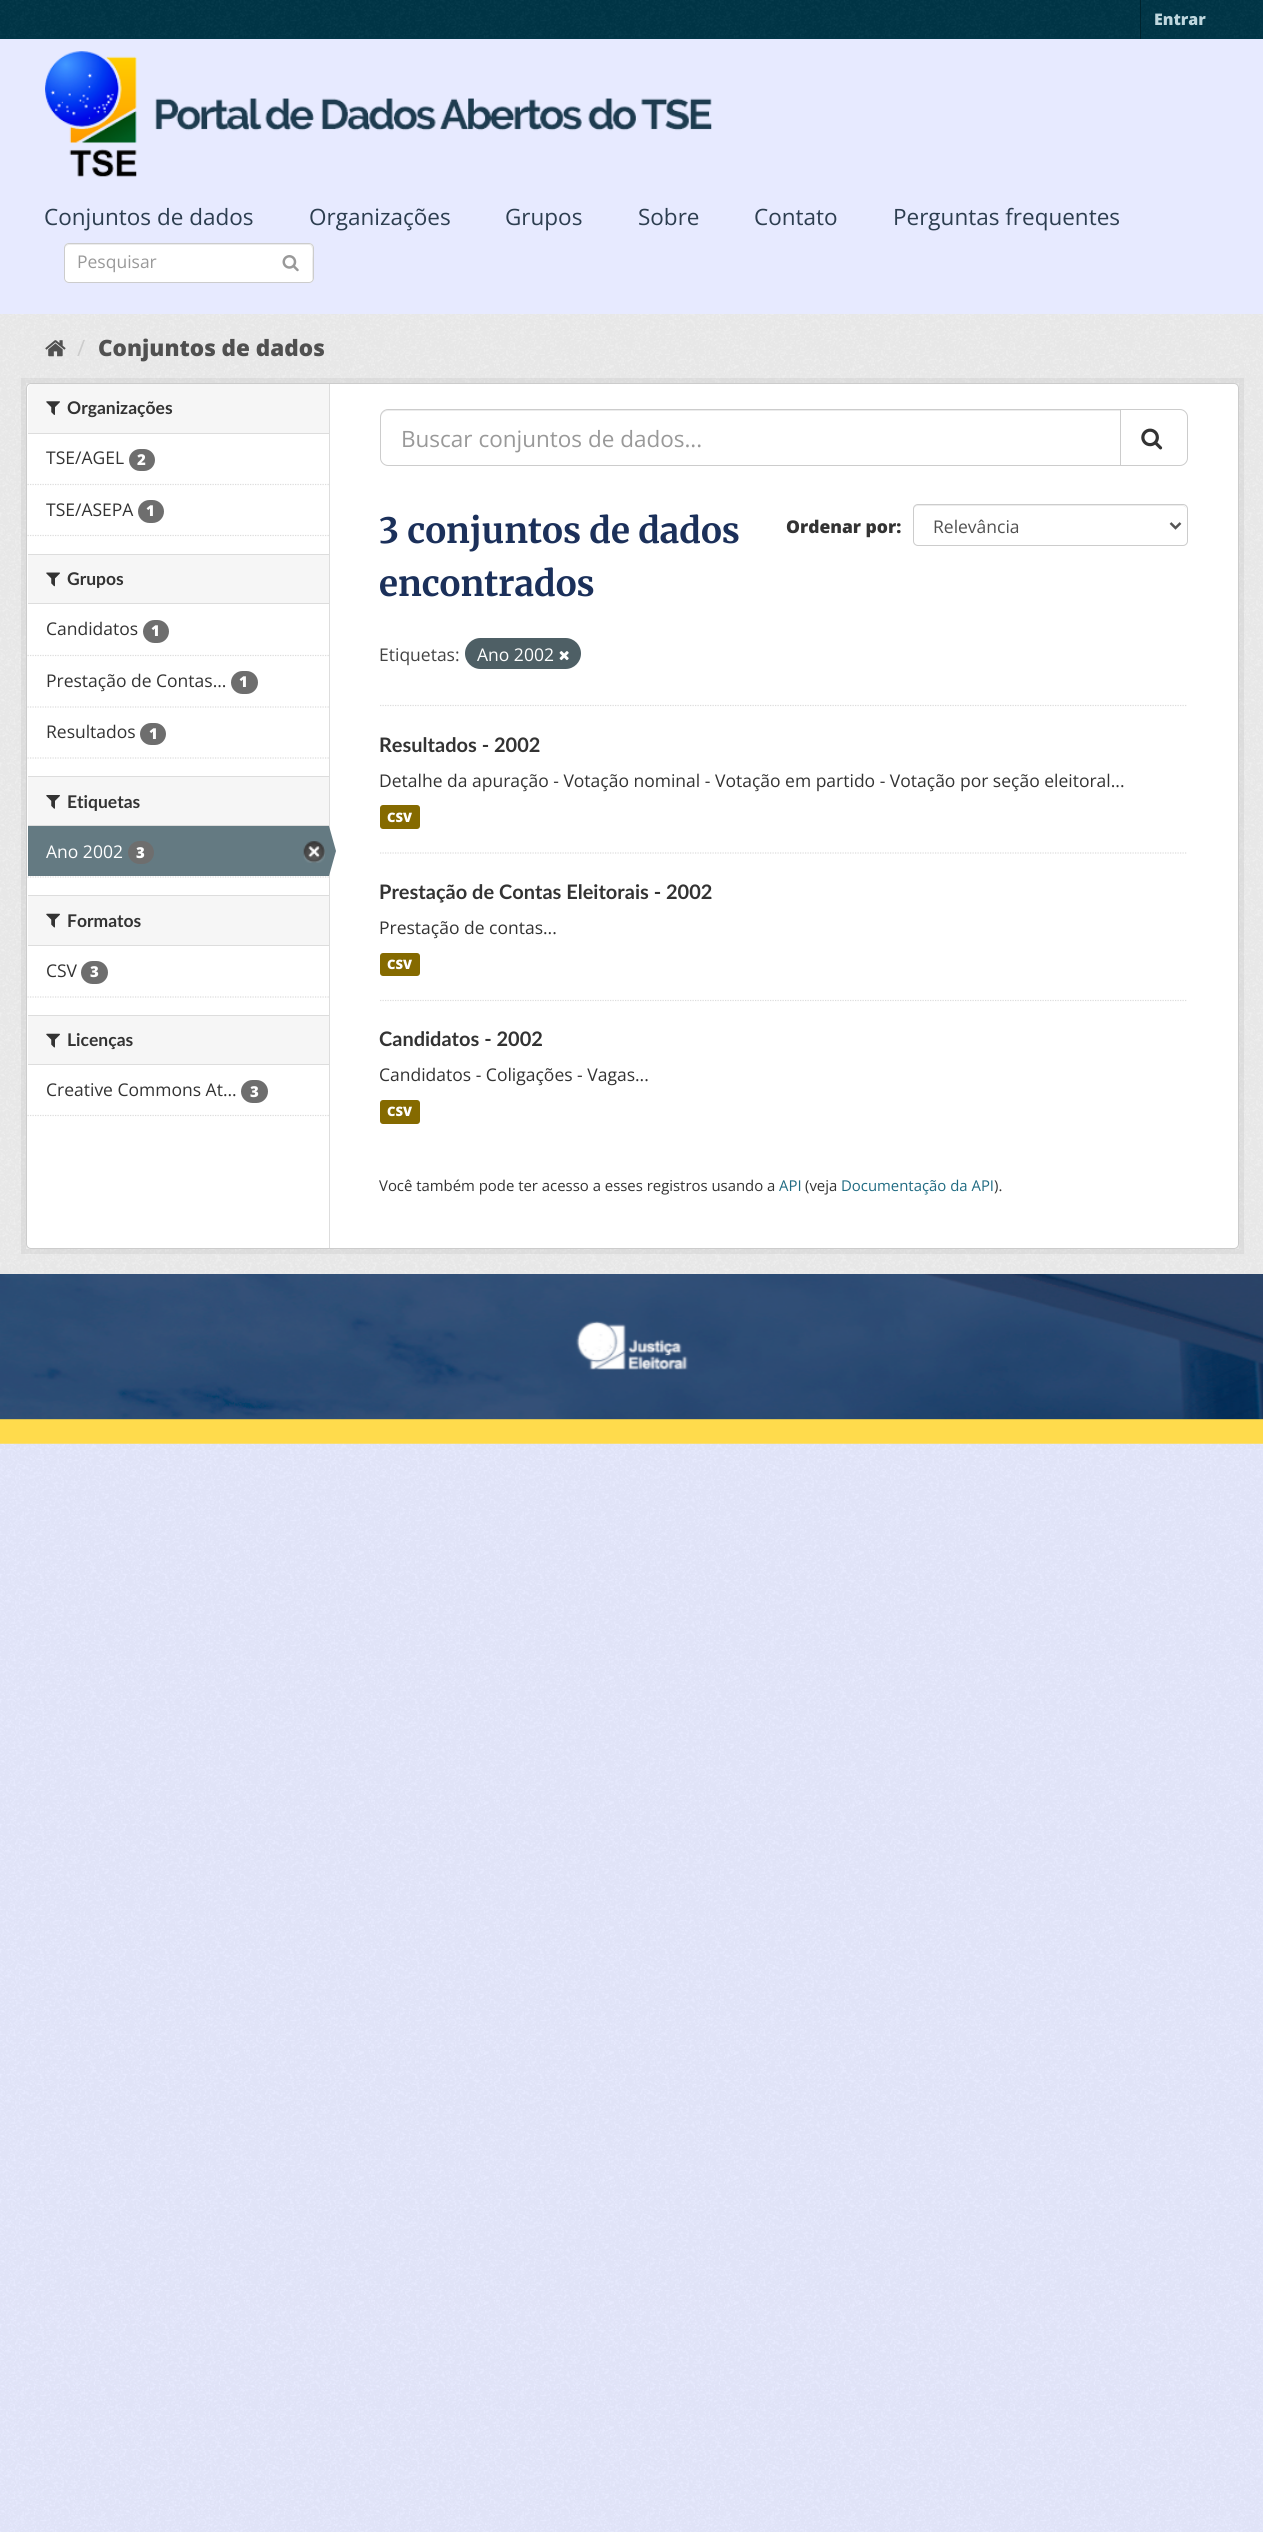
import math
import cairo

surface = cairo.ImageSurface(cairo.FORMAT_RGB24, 1263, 2532)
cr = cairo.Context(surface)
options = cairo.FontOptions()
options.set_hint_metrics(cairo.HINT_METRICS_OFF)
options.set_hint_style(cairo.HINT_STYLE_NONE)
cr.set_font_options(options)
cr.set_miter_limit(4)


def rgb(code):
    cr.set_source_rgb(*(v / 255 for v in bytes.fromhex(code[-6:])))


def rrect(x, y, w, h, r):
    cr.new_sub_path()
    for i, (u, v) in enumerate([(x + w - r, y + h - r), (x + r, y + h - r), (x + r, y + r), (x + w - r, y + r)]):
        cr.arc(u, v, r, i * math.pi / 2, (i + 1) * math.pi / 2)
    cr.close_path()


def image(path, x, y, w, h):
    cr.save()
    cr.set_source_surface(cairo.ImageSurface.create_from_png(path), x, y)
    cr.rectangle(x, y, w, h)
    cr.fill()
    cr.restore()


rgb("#e7eaff")
cr.paint()
image("img/1.png", 0, 1443, 1263, 1089)
rgb("#003647")
cr.rectangle(0, 0, 1263, 39)
cr.fill()
image("img/2.png", 0, 0, 1263, 38)
rgb("#00232e")
cr.rectangle(1140, 0, 1, 39)
cr.fill()
image("img/3.png", 45, 51, 667, 126)
rgb("#ffffff")
rrect(64, 243, 250, 40, 5)
cr.fill()
rgb("#ececec")
cr.new_path()
cr.move_to(69, 245)
cr.line_to(309, 245)
cr.curve_to(314, 245, 312, 257, 312, 259)
cr.line_to(312, 280)
cr.curve_to(313, 279, 313, 278, 313, 277)
cr.line_to(313, 248)
cr.curve_to(313, 246, 311, 244, 309, 244)
cr.line_to(69, 244)
cr.curve_to(67, 244, 65, 246, 65, 248)
cr.line_to(65, 249)
cr.curve_to(65, 247, 67, 245, 69, 245)
cr.close_path()
cr.fill()
rrect(64.5, 243.5, 249, 39, 4.5)
rgb("#cccccc")
cr.set_line_width(1)
cr.stroke()
image("img/4.png", 282, 255, 17, 17)
rgb("#eeeeee")
cr.rectangle(0, 314, 1263, 960)
cr.fill()
image("img/5.png", 0, 314, 1263, 960)
image("img/6.png", 45, 340, 21, 17)
cr.rectangle(23.5, 380.5, 1218, 871)
cr.set_source_rgba(0, 0, 0, 0.05)
cr.set_line_width(5)
cr.stroke()
rgb("#ffffff")
rrect(26.5, 383.5, 1212, 865, 4.5)
cr.fill_preserve()
rgb("#cccccc")
cr.set_line_width(1)
cr.stroke()
rgb("#f6f6f6")
cr.new_path()
cr.move_to(32, 384)
cr.line_to(329, 384)
cr.line_to(329, 434)
cr.line_to(28, 434)
cr.line_to(28, 388)
cr.curve_to(28, 386, 30, 384, 32, 384)
cr.close_path()
cr.fill()
rgb("#dddddd")
cr.rectangle(28, 433, 301, 1)
cr.fill()
image("img/7.png", 46, 401, 14, 14)
cr.new_path()
cr.move_to(27.5, 484.5)
cr.line_to(329, 484.5)
cr.set_line_width(1.2)
cr.set_dash([1.25, 1.25])
cr.stroke()
rgb("#6e6e6e")
rrect(129, 449, 26, 22, 11)
cr.fill()
rrect(138, 500, 26, 23, 11.5)
cr.fill()
cr.new_path()
cr.move_to(27.5, 535.5)
cr.line_to(329, 535.5)
rgb("#dddddd")
cr.stroke()
for x, y, w, h, color in [
    (28, 555, 301, 48, "#f6f6f6"),
    (28, 554, 301, 1, "#dddddd"),
    (28, 603, 301, 1, "#dddddd"),
]:
    rgb(color)
    cr.rectangle(x, y, w, h)
    cr.fill()
image("img/8.png", 46, 572, 14, 15)
cr.new_path()
cr.move_to(27.5, 655.5)
cr.line_to(329, 655.5)
cr.stroke()
rgb("#6e6e6e")
rrect(143, 620, 26, 23, 11.5)
cr.fill()
cr.new_path()
cr.move_to(27.5, 707)
cr.line_to(329, 707)
rgb("#dddddd")
cr.stroke()
rgb("#6e6e6e")
rrect(231, 671, 27, 23, 11.5)
cr.fill()
rrect(140, 723, 26, 22, 11)
cr.fill()
cr.new_path()
cr.move_to(27.5, 758)
cr.line_to(329, 758)
rgb("#dddddd")
cr.stroke()
for x, y, w, h, color in [
    (28, 777, 301, 48, "#f6f6f6"),
    (28, 776, 301, 1, "#dddddd"),
    (28, 825, 301, 1, "#dddddd"),
]:
    rgb(color)
    cr.rectangle(x, y, w, h)
    cr.fill()
image("img/9.png", 46, 795, 14, 14)
rgb("#647a82")
cr.rectangle(28, 826, 301, 50)
cr.fill()
rgb("#6e6e6e")
rrect(128, 841, 26, 23, 11.5)
cr.fill()
image("img/10.png", 303, 841, 22, 22)
rgb("#dddddd")
cr.rectangle(329, 384, 1, 864)
cr.fill()
rgb("#647a82")
cr.new_path()
cr.move_to(329, 876)
cr.line_to(329, 826)
cr.line_to(336, 851)
cr.close_path()
cr.fill()
cr.new_path()
cr.move_to(27.5, 877)
cr.line_to(329, 877)
rgb("#dddddd")
cr.stroke()
for x, y, w, h, color in [
    (28, 896, 301, 49, "#f6f6f6"),
    (28, 895, 301, 1, "#dddddd"),
    (28, 945, 301, 1, "#dddddd"),
]:
    rgb(color)
    cr.rectangle(x, y, w, h)
    cr.fill()
image("img/11.png", 46, 913, 14, 15)
rgb("#6e6e6e")
rrect(81, 961, 27, 23, 11.5)
cr.fill()
cr.new_path()
cr.move_to(27.5, 997)
cr.line_to(329, 997)
rgb("#dddddd")
cr.stroke()
for x, y, w, h, color in [
    (28, 1016, 301, 48, "#f6f6f6"),
    (28, 1015, 301, 1, "#dddddd"),
    (28, 1064, 301, 1, "#dddddd"),
]:
    rgb(color)
    cr.rectangle(x, y, w, h)
    cr.fill()
image("img/11.png", 46, 1033, 14, 15)
rgb("#6e6e6e")
rrect(241, 1080, 27, 23, 11.5)
cr.fill()
cr.new_path()
cr.move_to(27.5, 1115.5)
cr.line_to(329, 1115.5)
rgb("#dddddd")
cr.stroke()
cr.new_path()
cr.move_to(380, 705.5)
cr.line_to(1187.5, 705.5)
cr.stroke()
rgb("#ececec")
cr.new_path()
cr.move_to(388, 411)
cr.line_to(1120, 411)
cr.line_to(1120, 410)
cr.line_to(387, 410)
cr.curve_to(384, 410, 381, 413, 381, 416)
cr.line_to(381, 418)
cr.curve_to(381, 414, 384, 411, 388, 411)
cr.close_path()
cr.fill()
cr.new_path()
cr.move_to(388, 409.5)
cr.line_to(1120.5, 409.5)
cr.line_to(1120.5, 465.5)
cr.line_to(388, 465.5)
cr.curve_to(384, 465.5, 380.5, 462, 380.5, 458)
cr.line_to(380.5, 417)
cr.curve_to(380.5, 413, 384, 409.5, 388, 409.5)
cr.close_path()
rgb("#cccccc")
cr.set_line_width(1)
cr.set_dash([])
cr.stroke()
rgb("#ffffff")
cr.new_path()
cr.move_to(1120.5, 409.5)
cr.line_to(1180, 409.5)
cr.curve_to(1184, 409.5, 1187.5, 413, 1187.5, 417)
cr.line_to(1187.5, 458)
cr.curve_to(1187.5, 462, 1184, 465.5, 1180, 465.5)
cr.line_to(1120.5, 465.5)
cr.close_path()
cr.fill_preserve()
rgb("#cccccc")
cr.stroke()
image("img/12.png", 1141, 428, 22, 22)
rgb("#ececec")
cr.new_path()
cr.move_to(918, 506)
cr.line_to(1182, 506)
cr.curve_to(1185, 506, 1186, 508, 1186, 510)
cr.curve_to(1186, 507, 1185, 505, 1182, 505)
cr.line_to(918, 505)
cr.curve_to(915, 505, 914, 507, 914, 510)
cr.curve_to(914, 508, 915, 506, 918, 506)
cr.close_path()
cr.fill()
rrect(913.5, 504.5, 274, 41, 4.5)
rgb("#cccccc")
cr.stroke()
cr.new_path()
cr.move_to(1170.5, 523)
cr.line_to(1175.5, 528)
cr.line_to(1180.5, 523)
rgb("#555555")
cr.set_line_width(2.5)
cr.stroke()
rgb("#4e5f65")
rrect(465, 638, 116, 31, 15.5)
cr.fill()
image("img/13.png", 559, 651, 10, 10)
cr.new_path()
cr.move_to(380, 853)
cr.line_to(1187.5, 853)
rgb("#dddddd")
cr.set_line_width(1.2)
cr.set_dash([1.25, 1.25])
cr.stroke()
rgb("#856a00")
rrect(380, 805, 40, 24, 3)
cr.fill()
cr.new_path()
cr.move_to(380, 1000.5)
cr.line_to(1187.5, 1000.5)
rgb("#dddddd")
cr.stroke()
rgb("#856a00")
rrect(380, 953, 40, 23, 3)
cr.fill()
rrect(380, 1100, 40, 24, 3)
cr.fill()
image("img/14.png", 0, 1274, 1263, 170)
cr.select_font_face("Open Sans ExtraBold")
cr.set_font_size(16)
rgb("#bfd7de")
cr.move_to(1154, 25)
cr.show_text("Entrar")
cr.select_font_face("Open Sans")
cr.set_font_size(22.5)
rgb("#2d3e50")
for x, y, s in [
    (44, 225, "Conjuntos de dados"),
    (309, 225, "Organizações"),
    (505, 225, "Grupos"),
    (638, 225, "Sobre"),
    (754, 225, "Contato"),
    (893, 225, "Perguntas frequentes"),
]:
    cr.move_to(x, y)
    cr.show_text(s)
cr.set_font_size(17.5)
rgb("#999999")
cr.move_to(77, 268)
cr.show_text("Pesquisar")
cr.set_font_size(22.5)
rgb("#cccccc")
cr.move_to(77, 356)
cr.show_text("/")
cr.select_font_face("Open Sans ExtraBold")
rgb("#505050")
cr.move_to(98, 356)
cr.show_text("Conjuntos de dados")
cr.select_font_face("Lato", cairo.FONT_SLANT_NORMAL, cairo.FONT_WEIGHT_BOLD)
cr.set_font_size(17.5)
rgb("#333333")
cr.move_to(67, 414)
cr.show_text("Organizações")
cr.select_font_face("Open Sans")
cr.move_to(46, 464)
cr.show_text("TSE/AGEL")
cr.select_font_face("Open Sans ExtraBold")
cr.set_font_size(15)
rgb("#ffffff")
cr.move_to(137, 465)
cr.show_text("2")
cr.select_font_face("Open Sans")
cr.set_font_size(17.5)
rgb("#333333")
cr.move_to(46, 516)
cr.show_text("TSE/ASEPA")
cr.select_font_face("Open Sans ExtraBold")
cr.set_font_size(15)
rgb("#ffffff")
cr.move_to(146, 516)
cr.show_text("1")
cr.select_font_face("Lato", cairo.FONT_SLANT_NORMAL, cairo.FONT_WEIGHT_BOLD)
cr.set_font_size(17.5)
rgb("#333333")
cr.move_to(67, 585)
cr.show_text("Grupos")
cr.select_font_face("Open Sans")
cr.move_to(46, 635)
cr.show_text("Candidatos")
cr.select_font_face("Open Sans ExtraBold")
cr.set_font_size(15)
rgb("#ffffff")
cr.move_to(151, 636)
cr.show_text("1")
cr.select_font_face("Open Sans")
cr.set_font_size(17.5)
rgb("#333333")
cr.move_to(46, 687)
cr.show_text("Prestação de Contas...")
cr.select_font_face("Open Sans ExtraBold")
cr.set_font_size(15)
rgb("#ffffff")
cr.move_to(239, 687)
cr.show_text("1")
cr.select_font_face("Open Sans")
cr.set_font_size(17.5)
rgb("#333333")
cr.move_to(46, 738)
cr.show_text("Resultados")
cr.select_font_face("Open Sans ExtraBold")
cr.set_font_size(15)
rgb("#ffffff")
cr.move_to(149, 739)
cr.show_text("1")
cr.select_font_face("Lato", cairo.FONT_SLANT_NORMAL, cairo.FONT_WEIGHT_BOLD)
cr.set_font_size(17.5)
rgb("#333333")
cr.move_to(67, 808)
cr.show_text("Etiquetas")
cr.select_font_face("Open Sans")
rgb("#ffffff")
cr.move_to(46, 858)
cr.show_text("Ano 2002")
cr.select_font_face("Open Sans ExtraBold")
cr.set_font_size(15)
cr.move_to(136, 858)
cr.show_text("3")
cr.select_font_face("Lato", cairo.FONT_SLANT_NORMAL, cairo.FONT_WEIGHT_BOLD)
cr.set_font_size(17.5)
rgb("#333333")
cr.move_to(67, 927)
cr.show_text("Formatos")
cr.select_font_face("Open Sans")
cr.move_to(46, 977)
cr.show_text("CSV")
cr.select_font_face("Open Sans ExtraBold")
cr.set_font_size(15)
rgb("#ffffff")
cr.move_to(90, 977)
cr.show_text("3")
cr.select_font_face("Lato", cairo.FONT_SLANT_NORMAL, cairo.FONT_WEIGHT_BOLD)
cr.set_font_size(17.5)
rgb("#333333")
cr.move_to(67, 1046)
cr.show_text("Licenças")
cr.select_font_face("Open Sans")
cr.move_to(46, 1096)
cr.show_text("Creative Commons At...")
cr.select_font_face("Open Sans ExtraBold")
cr.set_font_size(15)
rgb("#ffffff")
cr.move_to(250, 1097)
cr.show_text("3")
cr.select_font_face("Open Sans")
cr.set_font_size(22.5)
rgb("#999999")
cr.move_to(401, 447)
cr.show_text("Buscar conjuntos de dados...")
cr.select_font_face("Merriweather", cairo.FONT_SLANT_NORMAL, cairo.FONT_WEIGHT_BOLD)
cr.set_font_size(35)
rgb("#1b305a")
cr.move_to(379, 543)
cr.show_text("3 conjuntos de dados")
cr.move_to(379, 596)
cr.show_text("encontrados")
cr.select_font_face("Open Sans ExtraBold")
cr.set_font_size(17.5)
rgb("#333333")
cr.move_to(786, 533)
cr.show_text("Ordenar por:")
cr.select_font_face("Open Sans")
rgb("#505050")
cr.move_to(933, 533)
cr.show_text("Relevância")
rgb("#444444")
cr.move_to(379, 661)
cr.show_text("Etiquetas:")
rgb("#ffffff")
cr.move_to(477, 661)
cr.show_text("Ano 2002")
cr.select_font_face("Lato", cairo.FONT_SLANT_NORMAL, cairo.FONT_WEIGHT_BOLD)
cr.set_font_size(20)
rgb("#333333")
cr.move_to(379, 752)
cr.show_text("Resultados - 2002")
cr.select_font_face("Open Sans")
cr.set_font_size(17.5)
cr.move_to(379, 787)
cr.show_text("Detalhe da apuração - Votação nominal - Votação em partido - Votação por seção eleitoral...")
cr.select_font_face("Open Sans ExtraBold")
cr.set_font_size(13)
rgb("#ffffff")
cr.move_to(387, 822)
cr.show_text("CSV")
cr.select_font_face("Lato", cairo.FONT_SLANT_NORMAL, cairo.FONT_WEIGHT_BOLD)
cr.set_font_size(20)
rgb("#333333")
cr.move_to(379, 899)
cr.show_text("Prestação de Contas Eleitorais - 2002")
cr.select_font_face("Open Sans")
cr.set_font_size(17.5)
cr.move_to(379, 934)
cr.show_text("Prestação de contas...")
cr.select_font_face("Open Sans ExtraBold")
cr.set_font_size(13)
rgb("#ffffff")
cr.move_to(387, 969)
cr.show_text("CSV")
cr.select_font_face("Lato", cairo.FONT_SLANT_NORMAL, cairo.FONT_WEIGHT_BOLD)
cr.set_font_size(20)
rgb("#333333")
cr.move_to(379, 1046)
cr.show_text("Candidatos - 2002")
cr.select_font_face("Open Sans")
cr.set_font_size(17.5)
cr.move_to(379, 1081)
cr.show_text("Candidatos - Coligações - Vagas...")
cr.select_font_face("Open Sans ExtraBold")
cr.set_font_size(13)
rgb("#ffffff")
cr.move_to(387, 1116)
cr.show_text("CSV")
cr.select_font_face("Open Sans")
cr.set_font_size(14.9)
rgb("#333333")
cr.move_to(379, 1191)
cr.show_text("Você também pode ter acesso a esses registros usando a")
rgb("#206b82")
cr.move_to(779, 1191)
cr.show_text("API")
rgb("#333333")
cr.move_to(805, 1191)
cr.show_text("(veja")
rgb("#206b82")
cr.move_to(841, 1191)
cr.show_text("Documentação da API")
rgb("#333333")
cr.move_to(994, 1191)
cr.show_text(").")
surface.write_to_png("page.png")
